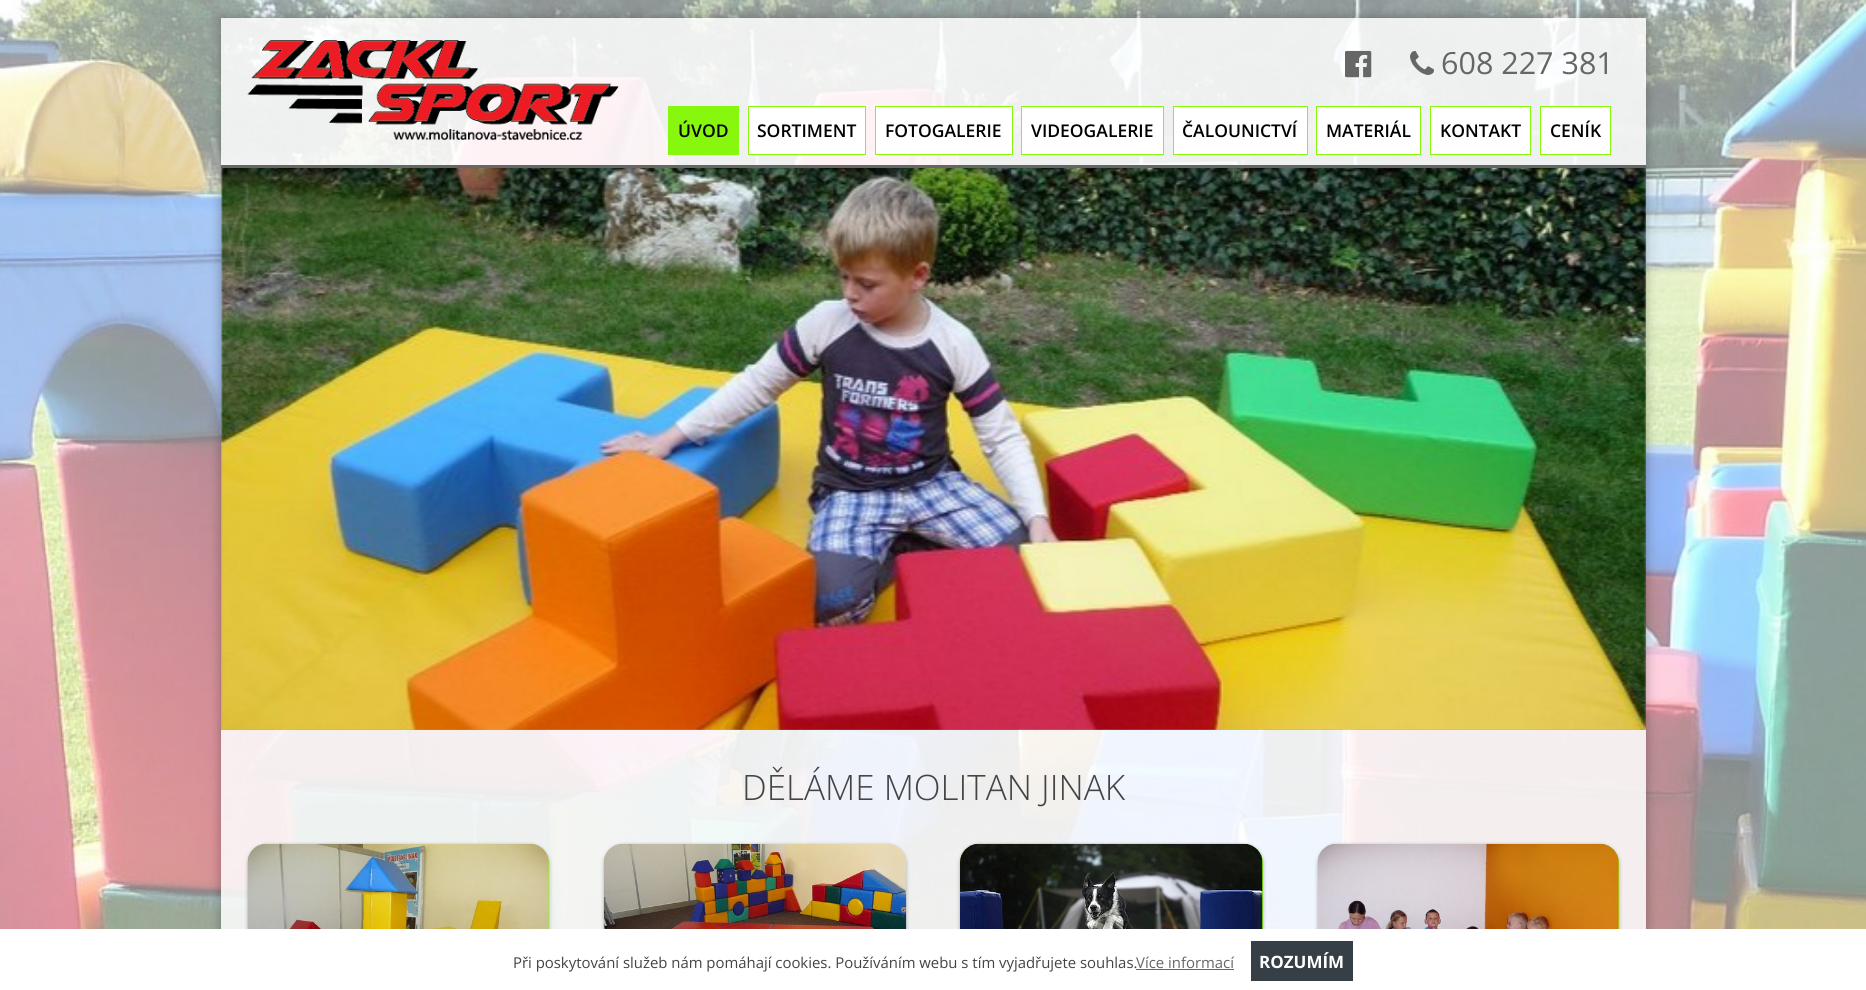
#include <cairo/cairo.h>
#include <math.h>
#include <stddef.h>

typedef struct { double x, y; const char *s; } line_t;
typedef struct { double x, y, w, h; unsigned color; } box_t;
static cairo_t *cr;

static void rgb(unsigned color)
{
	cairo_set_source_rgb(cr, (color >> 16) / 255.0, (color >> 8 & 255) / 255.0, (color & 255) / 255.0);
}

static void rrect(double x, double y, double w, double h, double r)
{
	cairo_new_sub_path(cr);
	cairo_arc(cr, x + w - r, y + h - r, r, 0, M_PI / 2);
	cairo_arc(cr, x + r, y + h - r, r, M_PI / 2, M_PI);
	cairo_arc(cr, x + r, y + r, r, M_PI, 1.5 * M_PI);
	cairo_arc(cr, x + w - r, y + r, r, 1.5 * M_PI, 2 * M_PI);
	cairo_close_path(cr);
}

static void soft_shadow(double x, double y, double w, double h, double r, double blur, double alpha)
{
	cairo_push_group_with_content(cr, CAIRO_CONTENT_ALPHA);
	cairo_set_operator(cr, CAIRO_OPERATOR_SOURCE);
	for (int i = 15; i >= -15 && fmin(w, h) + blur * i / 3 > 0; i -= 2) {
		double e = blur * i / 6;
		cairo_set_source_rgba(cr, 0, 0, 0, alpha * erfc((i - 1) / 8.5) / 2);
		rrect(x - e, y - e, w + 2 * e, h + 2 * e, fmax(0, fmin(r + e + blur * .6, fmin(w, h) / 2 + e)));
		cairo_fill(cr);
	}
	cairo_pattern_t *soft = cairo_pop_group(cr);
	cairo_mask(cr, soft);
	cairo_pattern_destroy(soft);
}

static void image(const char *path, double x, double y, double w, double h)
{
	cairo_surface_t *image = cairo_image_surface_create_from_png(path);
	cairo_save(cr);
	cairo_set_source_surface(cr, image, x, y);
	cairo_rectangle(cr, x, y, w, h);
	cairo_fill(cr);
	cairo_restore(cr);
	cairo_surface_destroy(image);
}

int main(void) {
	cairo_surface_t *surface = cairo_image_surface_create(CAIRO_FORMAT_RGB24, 1866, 990);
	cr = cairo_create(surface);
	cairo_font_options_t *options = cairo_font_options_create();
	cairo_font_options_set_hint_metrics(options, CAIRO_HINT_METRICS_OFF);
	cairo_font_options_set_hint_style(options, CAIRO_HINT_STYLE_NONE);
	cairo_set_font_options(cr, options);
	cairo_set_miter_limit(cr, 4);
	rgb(0xffffff);
	cairo_paint(cr);
	image("img/1.png", 0, 0, 1866, 929);
	cairo_save(cr);
	cairo_set_fill_rule(cr, CAIRO_FILL_RULE_EVEN_ODD);
	cairo_new_path(cr);
	cairo_move_to(cr, 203, 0);
	cairo_line_to(cr, 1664, 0);
	cairo_line_to(cr, 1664, 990);
	cairo_line_to(cr, 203, 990);
	cairo_close_path(cr);
	cairo_move_to(cr, 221, 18);
	cairo_line_to(cr, 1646, 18);
	cairo_line_to(cr, 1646, 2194);
	cairo_line_to(cr, 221, 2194);
	cairo_close_path(cr);
	cairo_clip(cr);
	rgb(0x000000);
	soft_shadow(221, 18, 1425, 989, 0, 5.5, 0.3);
	cairo_restore(cr);
	cairo_set_source_rgba(cr, 1, 1, 1, 0.85);
	cairo_rectangle(cr, 221, 18, 1425, 147);
	cairo_fill(cr);
	rgb(0x666666);
	cairo_rectangle(cr, 221, 165, 1425, 3);
	cairo_fill(cr);
	image("img/2.png", 247, 40, 372, 100);
	image("img/3.png", 1345, 50, 27, 28);
	image("img/4.png", 1410, 51, 24, 24);
	rgb(0x88f70e);
	cairo_rectangle(cr, 668, 106, 71, 49);
	cairo_fill(cr);
	rgb(0xffffff);
	cairo_rectangle(cr, 748.5, 106.5, 117, 48);
	cairo_fill_preserve(cr);
	rgb(0x88f70e);
	cairo_set_line_width(cr, 1);
	cairo_stroke(cr);
	rgb(0xffffff);
	cairo_rectangle(cr, 875.5, 106.5, 137, 48);
	cairo_fill_preserve(cr);
	rgb(0x88f70e);
	cairo_stroke(cr);
	rgb(0xffffff);
	cairo_rectangle(cr, 1021.5, 106.5, 142, 48);
	cairo_fill_preserve(cr);
	rgb(0x88f70e);
	cairo_stroke(cr);
	rgb(0xffffff);
	cairo_rectangle(cr, 1173.5, 106.5, 134, 48);
	cairo_fill_preserve(cr);
	rgb(0x88f70e);
	cairo_stroke(cr);
	rgb(0xffffff);
	cairo_rectangle(cr, 1316.5, 106.5, 104, 48);
	cairo_fill_preserve(cr);
	rgb(0x88f70e);
	cairo_stroke(cr);
	rgb(0xffffff);
	cairo_rectangle(cr, 1430.5, 106.5, 100, 48);
	cairo_fill_preserve(cr);
	rgb(0x88f70e);
	cairo_stroke(cr);
	rgb(0xffffff);
	cairo_rectangle(cr, 1540.5, 106.5, 70, 48);
	cairo_fill_preserve(cr);
	rgb(0x88f70e);
	cairo_stroke(cr);
	image("img/5.png", 221, 168, 1425, 562);
	cairo_set_source_rgba(cr, 1, 1, 1, 0.85);
	cairo_rectangle(cr, 221, 730, 1425, 199);
	cairo_fill(cr);
	rgb(0x000000);
	soft_shadow(248, 845, 301, 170, 19, 2, 0.3);
	rgb(0x88f70e);
	rrect(248, 844, 301, 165, 19);
	cairo_fill(cr);
	image("img/6.png", 247, 843, 302, 86);
	rgb(0x000000);
	soft_shadow(604, 845, 302, 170, 19, 2, 0.3);
	image("img/7.png", 603, 843, 304, 86);
	soft_shadow(960, 845, 303, 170, 19, 2, 0.3);
	rgb(0x88f70e);
	rrect(960, 844, 303, 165, 19);
	cairo_fill(cr);
	image("img/8.png", 960, 843, 303, 86);
	rgb(0x000000);
	soft_shadow(1318, 845, 301, 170, 19, 2, 0.3);
	rgb(0x88f70e);
	rrect(1318, 844, 301, 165, 19);
	cairo_fill(cr);
	image("img/9.png", 1317, 843, 302, 86);
	{
		static const box_t items[] = {
			{211, 929, 1445, 61, 0xffffff},
			{1136, 969, 98, 1, 0x666666},
			{1251, 941, 102, 40, 0x363f45},
		};
		for (size_t i = 0; i < sizeof items / sizeof *items; i++) {
			rgb(items[i].color);
			cairo_rectangle(cr, items[i].x, items[i].y, items[i].w, items[i].h);
			cairo_fill(cr);
		}
	}
	cairo_select_font_face(cr, "Open Sans", CAIRO_FONT_SLANT_NORMAL, CAIRO_FONT_WEIGHT_NORMAL);
	cairo_set_font_size(cr, 30.5);
	rgb(0x666666);
	cairo_move_to(cr, 1441, 74);
	cairo_show_text(cr, "608 227 381");
	cairo_select_font_face(cr, "Open Sans SemiBold", CAIRO_FONT_SLANT_NORMAL, CAIRO_FONT_WEIGHT_NORMAL);
	cairo_set_font_size(cr, 17.5);
	rgb(0x000000);
	{
		static const line_t items[] = {
			{678, 137, "ÚVOD"},
			{757, 137, "SORTIMENT"},
			{885, 137, "FOTOGALERIE"},
			{1031, 137, "VIDEOGALERIE"},
			{1182, 137, "ČALOUNICTVÍ"},
			{1326, 137, "MATERIÁL"},
			{1440, 137, "KONTAKT"},
			{1550, 137, "CENÍK"},
		};
		for (size_t i = 0; i < sizeof items / sizeof *items; i++) {
			cairo_move_to(cr, items[i].x, items[i].y);
			cairo_show_text(cr, items[i].s);
		}
	}
	cairo_select_font_face(cr, "Open Sans Light", CAIRO_FONT_SLANT_NORMAL, CAIRO_FONT_WEIGHT_NORMAL);
	cairo_set_font_size(cr, 35);
	rgb(0x444444);
	cairo_move_to(cr, 742, 800);
	cairo_show_text(cr, "DĚLÁME MOLITAN JINAK");
	cairo_select_font_face(cr, "Open Sans", CAIRO_FONT_SLANT_NORMAL, CAIRO_FONT_WEIGHT_NORMAL);
	cairo_set_font_size(cr, 14.9);
	cairo_move_to(cr, 513, 968);
	cairo_show_text(cr, "Při poskytování služeb nám pomáhají cookies. Používáním webu s tím vyjadřujete souhlas.");
	rgb(0x666666);
	cairo_move_to(cr, 1136, 968);
	cairo_show_text(cr, "Více informací");
	cairo_select_font_face(cr, "Open Sans", CAIRO_FONT_SLANT_NORMAL, CAIRO_FONT_WEIGHT_BOLD);
	cairo_set_font_size(cr, 17);
	rgb(0xffffff);
	cairo_move_to(cr, 1259, 968);
	cairo_show_text(cr, "ROZUMÍM");
	cairo_surface_write_to_png(surface, "page.png");
	cairo_font_options_destroy(options);
	cairo_destroy(cr);
	cairo_surface_destroy(surface);
	return 0;
}
